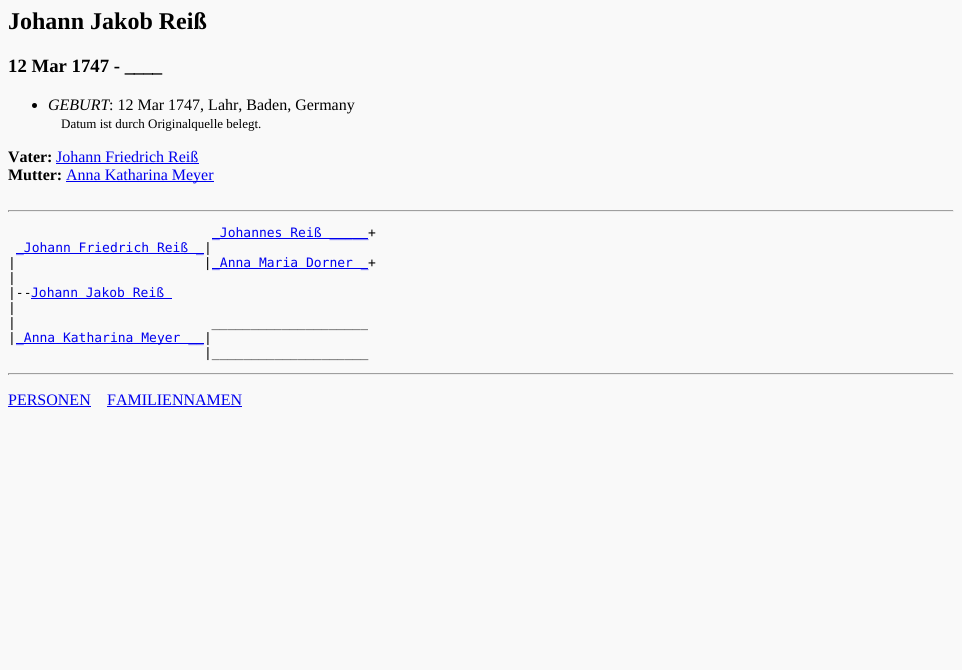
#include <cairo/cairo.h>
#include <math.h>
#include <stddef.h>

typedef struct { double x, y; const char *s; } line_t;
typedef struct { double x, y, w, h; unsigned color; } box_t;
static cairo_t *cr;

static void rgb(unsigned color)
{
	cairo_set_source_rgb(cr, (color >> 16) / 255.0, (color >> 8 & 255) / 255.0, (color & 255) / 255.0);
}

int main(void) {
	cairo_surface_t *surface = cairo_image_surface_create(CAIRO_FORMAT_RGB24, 962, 670);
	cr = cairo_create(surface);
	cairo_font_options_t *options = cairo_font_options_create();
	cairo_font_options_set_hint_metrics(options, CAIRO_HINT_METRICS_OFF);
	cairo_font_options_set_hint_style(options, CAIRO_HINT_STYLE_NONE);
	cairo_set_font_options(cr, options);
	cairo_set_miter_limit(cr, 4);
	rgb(0xf9f9f9);
	cairo_paint(cr);
	rgb(0x000000);
	cairo_arc(cr, 34.5, 105.5, 2.5, 0, 2 * M_PI);
	cairo_fill(cr);
	{
		static const box_t items[] = {
			{56, 163, 143, 1, 0x0000ee},
			{66, 181, 148, 1, 0x0000ee},
			{8, 210, 946, 1, 0x9f9f9f},
			{953, 210, 1, 2, 0xeeeeee},
			{8, 211, 946, 1, 0xeeeeee},
			{8, 210, 1, 2, 0x9f9f9f},
			{212, 238, 156, 1, 0x0000ee},
			{16, 253, 188, 1, 0x0000ee},
			{212, 268, 156, 1, 0x0000ee},
			{31, 298, 141, 1, 0x0000ee},
			{16, 343, 188, 1, 0x0000ee},
			{8, 373, 946, 1, 0x9f9f9f},
			{953, 373, 1, 2, 0xeeeeee},
			{8, 374, 946, 1, 0xeeeeee},
			{8, 373, 1, 2, 0x9f9f9f},
			{8, 406, 83, 1, 0x0000ee},
			{107, 406, 135, 1, 0x0000ee},
		};
		for (size_t i = 0; i < sizeof items / sizeof *items; i++) {
			rgb(items[i].color);
			cairo_rectangle(cr, items[i].x, items[i].y, items[i].w, items[i].h);
			cairo_fill(cr);
		}
	}
	cairo_select_font_face(cr, "Liberation Serif", CAIRO_FONT_SLANT_NORMAL, CAIRO_FONT_WEIGHT_BOLD);
	cairo_set_font_size(cr, 24);
	rgb(0x000000);
	cairo_move_to(cr, 8, 29);
	cairo_show_text(cr, "Johann Jakob Reiß");
	cairo_set_font_size(cr, 18.75);
	cairo_move_to(cr, 8, 72);
	cairo_show_text(cr, "12 Mar 1747 - ____");
	cairo_select_font_face(cr, "Liberation Serif", CAIRO_FONT_SLANT_ITALIC, CAIRO_FONT_WEIGHT_NORMAL);
	cairo_set_font_size(cr, 16);
	cairo_move_to(cr, 48, 110);
	cairo_show_text(cr, "GEBURT");
	cairo_select_font_face(cr, "Liberation Serif", CAIRO_FONT_SLANT_NORMAL, CAIRO_FONT_WEIGHT_NORMAL);
	cairo_move_to(cr, 109, 110);
	cairo_show_text(cr, ": 12 Mar 1747, Lahr, Baden, Germany");
	cairo_set_font_size(cr, 13);
	cairo_move_to(cr, 61, 128);
	cairo_show_text(cr, "Datum ist durch Originalquelle belegt.");
	cairo_select_font_face(cr, "Liberation Serif", CAIRO_FONT_SLANT_NORMAL, CAIRO_FONT_WEIGHT_BOLD);
	cairo_set_font_size(cr, 16);
	cairo_move_to(cr, 8, 162);
	cairo_show_text(cr, "Vater:");
	cairo_select_font_face(cr, "Liberation Serif", CAIRO_FONT_SLANT_NORMAL, CAIRO_FONT_WEIGHT_NORMAL);
	rgb(0x0000ee);
	cairo_move_to(cr, 56, 162);
	cairo_show_text(cr, "Johann Friedrich Reiß");
	cairo_select_font_face(cr, "Liberation Serif", CAIRO_FONT_SLANT_NORMAL, CAIRO_FONT_WEIGHT_BOLD);
	rgb(0x000000);
	cairo_move_to(cr, 8, 180);
	cairo_show_text(cr, "Mutter:");
	cairo_select_font_face(cr, "Liberation Serif", CAIRO_FONT_SLANT_NORMAL, CAIRO_FONT_WEIGHT_NORMAL);
	rgb(0x0000ee);
	cairo_move_to(cr, 66, 180);
	cairo_show_text(cr, "Anna Katharina Meyer");
	cairo_select_font_face(cr, "DejaVu Sans Mono", CAIRO_FONT_SLANT_NORMAL, CAIRO_FONT_WEIGHT_NORMAL);
	cairo_set_font_size(cr, 13);
	cairo_move_to(cr, 212, 237);
	cairo_show_text(cr, "_Johannes Reiß _____");
	rgb(0x000000);
	cairo_move_to(cr, 368, 237);
	cairo_show_text(cr, "+");
	rgb(0x0000ee);
	cairo_move_to(cr, 16, 252);
	cairo_show_text(cr, "_Johann Friedrich Reiß _");
	rgb(0x000000);
	cairo_move_to(cr, 204, 252);
	cairo_show_text(cr, "|");
	cairo_move_to(cr, 8, 267);
	cairo_show_text(cr, "|                        |");
	rgb(0x0000ee);
	cairo_move_to(cr, 212, 267);
	cairo_show_text(cr, "_Anna Maria Dorner _");
	rgb(0x000000);
	{
		static const line_t items[] = {
			{368, 267, "+"},
			{8, 282, "|"},
			{8, 297, "|--"},
		};
		for (size_t i = 0; i < sizeof items / sizeof *items; i++) {
			cairo_move_to(cr, items[i].x, items[i].y);
			cairo_show_text(cr, items[i].s);
		}
	}
	rgb(0x0000ee);
	cairo_move_to(cr, 31, 297);
	cairo_show_text(cr, "Johann Jakob Reiß");
	rgb(0x000000);
	{
		static const line_t items[] = {
			{8, 312, "|"},
			{8, 327, "|                         ____________________"},
			{8, 342, "|"},
		};
		for (size_t i = 0; i < sizeof items / sizeof *items; i++) {
			cairo_move_to(cr, items[i].x, items[i].y);
			cairo_show_text(cr, items[i].s);
		}
	}
	rgb(0x0000ee);
	cairo_move_to(cr, 16, 342);
	cairo_show_text(cr, "_Anna Katharina Meyer __");
	rgb(0x000000);
	cairo_move_to(cr, 204, 342);
	cairo_show_text(cr, "|");
	cairo_move_to(cr, 204, 357);
	cairo_show_text(cr, "|____________________");
	cairo_select_font_face(cr, "Liberation Serif", CAIRO_FONT_SLANT_NORMAL, CAIRO_FONT_WEIGHT_NORMAL);
	cairo_set_font_size(cr, 16);
	rgb(0x0000ee);
	cairo_move_to(cr, 8, 405);
	cairo_show_text(cr, "PERSONEN");
	cairo_move_to(cr, 107, 405);
	cairo_show_text(cr, "FAMILIENNAMEN");
	cairo_surface_write_to_png(surface, "page.png");
	cairo_font_options_destroy(options);
	cairo_destroy(cr);
	cairo_surface_destroy(surface);
	return 0;
}
